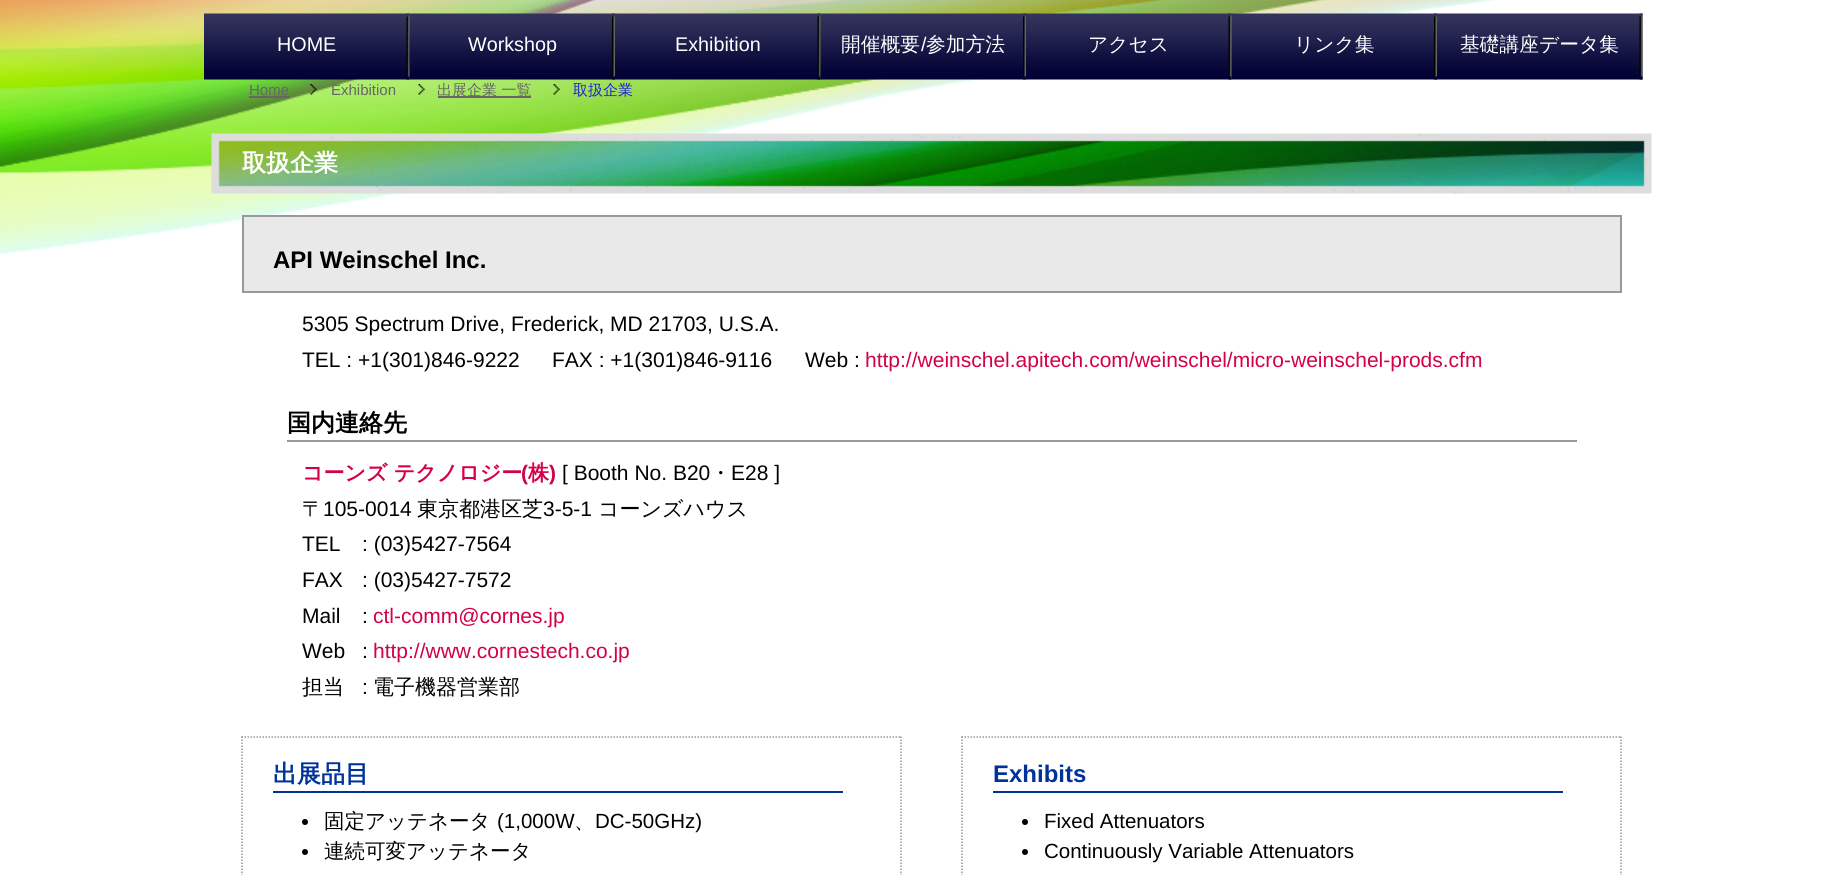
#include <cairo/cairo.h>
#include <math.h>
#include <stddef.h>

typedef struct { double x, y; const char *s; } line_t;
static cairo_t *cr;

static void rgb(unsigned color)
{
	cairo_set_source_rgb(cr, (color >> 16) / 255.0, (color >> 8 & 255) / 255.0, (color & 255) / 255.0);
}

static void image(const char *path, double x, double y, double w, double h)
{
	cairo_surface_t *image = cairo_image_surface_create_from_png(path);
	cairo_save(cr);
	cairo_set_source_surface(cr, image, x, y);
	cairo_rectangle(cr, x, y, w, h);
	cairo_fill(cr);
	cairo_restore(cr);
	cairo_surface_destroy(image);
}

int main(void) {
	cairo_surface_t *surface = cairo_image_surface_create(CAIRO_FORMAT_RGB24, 1848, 875);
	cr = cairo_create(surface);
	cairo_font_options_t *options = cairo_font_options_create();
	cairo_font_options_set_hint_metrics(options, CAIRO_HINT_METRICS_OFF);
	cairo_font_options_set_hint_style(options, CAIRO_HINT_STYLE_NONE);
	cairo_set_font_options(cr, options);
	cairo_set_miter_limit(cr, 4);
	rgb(0xffffff);
	cairo_paint(cr);
	image("img/1.png", 0, 0, 1499, 254);
	image("img/2.png", 204, 13, 206, 67);
	image("img/3.png", 406, 13, 4, 67);
	image("img/4.png", 409, 13, 206, 67);
	image("img/5.png", 612, 13, 3, 67);
	image("img/6.png", 615, 13, 206, 67);
	image("img/7.png", 817, 13, 4, 67);
	image("img/8.png", 820, 13, 206, 67);
	image("img/9.png", 1023, 13, 3, 67);
	image("img/10.png", 1026, 13, 206, 67);
	image("img/11.png", 1228, 13, 4, 67);
	image("img/12.png", 1231, 13, 206, 67);
	image("img/13.png", 1434, 13, 3, 67);
	image("img/14.png", 1437, 13, 206, 67);
	image("img/15.png", 1639, 13, 4, 67);
	rgb(0x666666);
	cairo_rectangle(cr, 249, 96, 41, 2);
	cairo_fill(cr);
	image("img/16.png", 310, 84, 7, 11);
	image("img/17.png", 418, 84, 7, 11);
	cairo_rectangle(cr, 438, 96, 93, 2);
	cairo_fill(cr);
	image("img/18.png", 553, 84, 7, 11);
	image("img/19.png", 211, 133, 1441, 61);
	rgb(0xe9e9e9);
	cairo_rectangle(cr, 243, 216, 1378, 76);
	cairo_fill_preserve(cr);
	rgb(0x999999);
	cairo_stroke(cr);
	cairo_rectangle(cr, 287, 440, 1290, 2);
	cairo_fill(cr);
	cairo_new_path(cr);
	cairo_move_to(cr, 241.5, 737);
	cairo_line_to(cr, 901.5, 737);
	cairo_set_line_width(cr, 1.5);
	cairo_set_dash(cr, (double[]){1.5, 1.5}, 2, 0);
	cairo_stroke(cr);
	cairo_new_path(cr);
	cairo_move_to(cr, 901, 736.5);
	cairo_line_to(cr, 901, 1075.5);
	cairo_stroke(cr);
	cairo_new_path(cr);
	cairo_move_to(cr, 242, 736.5);
	cairo_line_to(cr, 242, 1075.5);
	cairo_stroke(cr);
	rgb(0x003399);
	cairo_rectangle(cr, 273, 791, 570, 2);
	cairo_fill(cr);
	rgb(0x000000);
	cairo_arc(cr, 305, 822, 3, 0, 2 * M_PI);
	cairo_fill(cr);
	cairo_arc(cr, 305, 852, 3, 0, 2 * M_PI);
	cairo_fill(cr);
	cairo_new_path(cr);
	cairo_move_to(cr, 961.5, 737);
	cairo_line_to(cr, 1621.5, 737);
	rgb(0x999999);
	cairo_stroke(cr);
	cairo_new_path(cr);
	cairo_move_to(cr, 1621, 736.5);
	cairo_line_to(cr, 1621, 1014);
	cairo_stroke(cr);
	cairo_new_path(cr);
	cairo_move_to(cr, 962, 736.5);
	cairo_line_to(cr, 962, 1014);
	cairo_stroke(cr);
	rgb(0x003399);
	cairo_rectangle(cr, 993, 791, 570, 2);
	cairo_fill(cr);
	rgb(0x000000);
	cairo_arc(cr, 1025, 822, 3, 0, 2 * M_PI);
	cairo_fill(cr);
	cairo_arc(cr, 1025, 852, 3, 0, 2 * M_PI);
	cairo_fill(cr);
	cairo_select_font_face(cr, "Liberation Sans", CAIRO_FONT_SLANT_NORMAL, CAIRO_FONT_WEIGHT_NORMAL);
	cairo_set_font_size(cr, 19.75);
	rgb(0xffffff);
	{
		static const line_t items[] = {
			{277, 51, "HOME"},
			{468, 51, "Workshop"},
			{675, 51, "Exhibition"},
		};
		for (size_t i = 0; i < sizeof items / sizeof *items; i++) {
			cairo_move_to(cr, items[i].x, items[i].y);
			cairo_show_text(cr, items[i].s);
		}
	}
	cairo_select_font_face(cr, "WenQuanYi Zen Hei Medium", CAIRO_FONT_SLANT_NORMAL, CAIRO_FONT_WEIGHT_NORMAL);
	cairo_move_to(cr, 841, 51);
	cairo_show_text(cr, "開催概要");
	cairo_select_font_face(cr, "Liberation Sans", CAIRO_FONT_SLANT_NORMAL, CAIRO_FONT_WEIGHT_NORMAL);
	cairo_move_to(cr, 921, 51);
	cairo_show_text(cr, "/");
	cairo_select_font_face(cr, "WenQuanYi Zen Hei Medium", CAIRO_FONT_SLANT_NORMAL, CAIRO_FONT_WEIGHT_NORMAL);
	{
		static const line_t items[] = {
			{926, 51, "参加方法"},
			{1088, 51, "アクセス"},
			{1294, 51, "リンク集"},
			{1460, 51, "基礎講座データ集"},
		};
		for (size_t i = 0; i < sizeof items / sizeof *items; i++) {
			cairo_move_to(cr, items[i].x, items[i].y);
			cairo_show_text(cr, items[i].s);
		}
	}
	cairo_select_font_face(cr, "Liberation Sans", CAIRO_FONT_SLANT_NORMAL, CAIRO_FONT_WEIGHT_NORMAL);
	cairo_set_font_size(cr, 15);
	rgb(0x666666);
	cairo_move_to(cr, 249, 95);
	cairo_show_text(cr, "Home");
	cairo_move_to(cr, 331, 95);
	cairo_show_text(cr, "Exhibition");
	cairo_select_font_face(cr, "WenQuanYi Zen Hei Medium", CAIRO_FONT_SLANT_NORMAL, CAIRO_FONT_WEIGHT_NORMAL);
	cairo_move_to(cr, 437, 95);
	cairo_show_text(cr, "出展企業 一覧");
	rgb(0x2222d2);
	cairo_move_to(cr, 573, 95);
	cairo_show_text(cr, "取扱企業");
	cairo_select_font_face(cr, "WenQuanYi Zen Hei", CAIRO_FONT_SLANT_NORMAL, CAIRO_FONT_WEIGHT_BOLD);
	cairo_set_font_size(cr, 24);
	rgb(0xffffff);
	cairo_move_to(cr, 242, 171);
	cairo_show_text(cr, "取扱企業");
	cairo_select_font_face(cr, "Liberation Sans", CAIRO_FONT_SLANT_NORMAL, CAIRO_FONT_WEIGHT_BOLD);
	rgb(0x000000);
	cairo_move_to(cr, 273, 268);
	cairo_show_text(cr, "API Weinschel Inc.");
	cairo_select_font_face(cr, "Liberation Sans", CAIRO_FONT_SLANT_NORMAL, CAIRO_FONT_WEIGHT_NORMAL);
	cairo_set_font_size(cr, 21);
	{
		static const line_t items[] = {
			{302, 331, "5305 Spectrum Drive, Frederick, MD 21703, U.S.A."},
			{302, 367, "TEL : +1(301)846-9222"},
			{552, 367, "FAX : +1(301)846-9116"},
			{805, 367, "Web :"},
		};
		for (size_t i = 0; i < sizeof items / sizeof *items; i++) {
			cairo_move_to(cr, items[i].x, items[i].y);
			cairo_show_text(cr, items[i].s);
		}
	}
	rgb(0xd3004a);
	cairo_move_to(cr, 865, 367);
	cairo_show_text(cr, "http://weinschel.apitech.com/weinschel/micro-weinschel-prods.cfm");
	cairo_select_font_face(cr, "WenQuanYi Zen Hei", CAIRO_FONT_SLANT_NORMAL, CAIRO_FONT_WEIGHT_BOLD);
	cairo_set_font_size(cr, 24);
	rgb(0x000000);
	cairo_move_to(cr, 287, 431);
	cairo_show_text(cr, "国内連絡先");
	cairo_set_font_size(cr, 21);
	rgb(0xd3004a);
	cairo_move_to(cr, 302, 480);
	cairo_show_text(cr, "コーンズ テクノロジー");
	cairo_select_font_face(cr, "Liberation Sans", CAIRO_FONT_SLANT_NORMAL, CAIRO_FONT_WEIGHT_BOLD);
	cairo_move_to(cr, 521, 480);
	cairo_show_text(cr, "(");
	cairo_select_font_face(cr, "WenQuanYi Zen Hei", CAIRO_FONT_SLANT_NORMAL, CAIRO_FONT_WEIGHT_BOLD);
	cairo_move_to(cr, 528, 480);
	cairo_show_text(cr, "株");
	cairo_select_font_face(cr, "Liberation Sans", CAIRO_FONT_SLANT_NORMAL, CAIRO_FONT_WEIGHT_BOLD);
	cairo_move_to(cr, 549, 480);
	cairo_show_text(cr, ")");
	cairo_select_font_face(cr, "Liberation Sans", CAIRO_FONT_SLANT_NORMAL, CAIRO_FONT_WEIGHT_NORMAL);
	rgb(0x000000);
	cairo_move_to(cr, 562, 480);
	cairo_show_text(cr, "[ Booth No. B20");
	cairo_select_font_face(cr, "WenQuanYi Zen Hei Medium", CAIRO_FONT_SLANT_NORMAL, CAIRO_FONT_WEIGHT_NORMAL);
	cairo_move_to(cr, 710, 480);
	cairo_show_text(cr, "・");
	cairo_select_font_face(cr, "Liberation Sans", CAIRO_FONT_SLANT_NORMAL, CAIRO_FONT_WEIGHT_NORMAL);
	cairo_move_to(cr, 731, 480);
	cairo_show_text(cr, "E28 ]");
	cairo_select_font_face(cr, "WenQuanYi Zen Hei Medium", CAIRO_FONT_SLANT_NORMAL, CAIRO_FONT_WEIGHT_NORMAL);
	cairo_move_to(cr, 302, 516);
	cairo_show_text(cr, "〒");
	cairo_select_font_face(cr, "Liberation Sans", CAIRO_FONT_SLANT_NORMAL, CAIRO_FONT_WEIGHT_NORMAL);
	cairo_move_to(cr, 323, 516);
	cairo_show_text(cr, "105-0014");
	cairo_select_font_face(cr, "WenQuanYi Zen Hei Medium", CAIRO_FONT_SLANT_NORMAL, CAIRO_FONT_WEIGHT_NORMAL);
	cairo_move_to(cr, 417, 516);
	cairo_show_text(cr, "東京都港区芝");
	cairo_select_font_face(cr, "Liberation Sans", CAIRO_FONT_SLANT_NORMAL, CAIRO_FONT_WEIGHT_NORMAL);
	cairo_move_to(cr, 543, 516);
	cairo_show_text(cr, "3-5-1");
	cairo_select_font_face(cr, "WenQuanYi Zen Hei Medium", CAIRO_FONT_SLANT_NORMAL, CAIRO_FONT_WEIGHT_NORMAL);
	cairo_move_to(cr, 598, 516);
	cairo_show_text(cr, "コーンズハウス");
	cairo_select_font_face(cr, "Liberation Sans", CAIRO_FONT_SLANT_NORMAL, CAIRO_FONT_WEIGHT_NORMAL);
	{
		static const line_t items[] = {
			{302, 551, "TEL"},
			{362, 551, ": (03)5427-7564"},
			{302, 587, "FAX"},
			{362, 587, ": (03)5427-7572"},
			{302, 623, "Mail"},
			{362, 623, ":"},
		};
		for (size_t i = 0; i < sizeof items / sizeof *items; i++) {
			cairo_move_to(cr, items[i].x, items[i].y);
			cairo_show_text(cr, items[i].s);
		}
	}
	rgb(0xd3004a);
	cairo_move_to(cr, 373, 623);
	cairo_show_text(cr, "ctl-comm@cornes.jp");
	rgb(0x000000);
	cairo_move_to(cr, 302, 658);
	cairo_show_text(cr, "Web");
	cairo_move_to(cr, 362, 658);
	cairo_show_text(cr, ":");
	rgb(0xd3004a);
	cairo_move_to(cr, 373, 658);
	cairo_show_text(cr, "http://www.cornestech.co.jp");
	cairo_select_font_face(cr, "WenQuanYi Zen Hei Medium", CAIRO_FONT_SLANT_NORMAL, CAIRO_FONT_WEIGHT_NORMAL);
	rgb(0x000000);
	cairo_move_to(cr, 302, 694);
	cairo_show_text(cr, "担当");
	cairo_select_font_face(cr, "Liberation Sans", CAIRO_FONT_SLANT_NORMAL, CAIRO_FONT_WEIGHT_NORMAL);
	cairo_move_to(cr, 362, 694);
	cairo_show_text(cr, ":");
	cairo_select_font_face(cr, "WenQuanYi Zen Hei Medium", CAIRO_FONT_SLANT_NORMAL, CAIRO_FONT_WEIGHT_NORMAL);
	cairo_move_to(cr, 373, 694);
	cairo_show_text(cr, "電子機器営業部");
	cairo_select_font_face(cr, "WenQuanYi Zen Hei", CAIRO_FONT_SLANT_NORMAL, CAIRO_FONT_WEIGHT_BOLD);
	cairo_set_font_size(cr, 24);
	rgb(0x003399);
	cairo_move_to(cr, 273, 782);
	cairo_show_text(cr, "出展品目");
	cairo_select_font_face(cr, "WenQuanYi Zen Hei Medium", CAIRO_FONT_SLANT_NORMAL, CAIRO_FONT_WEIGHT_NORMAL);
	cairo_set_font_size(cr, 20.5);
	rgb(0x000000);
	cairo_move_to(cr, 324, 828);
	cairo_show_text(cr, "固定アッテネータ");
	cairo_select_font_face(cr, "Liberation Sans", CAIRO_FONT_SLANT_NORMAL, CAIRO_FONT_WEIGHT_NORMAL);
	cairo_move_to(cr, 497, 828);
	cairo_show_text(cr, "(1,000W");
	cairo_move_to(cr, 595, 828);
	cairo_show_text(cr, "DC-50GHz)");
	cairo_select_font_face(cr, "WenQuanYi Zen Hei Medium", CAIRO_FONT_SLANT_NORMAL, CAIRO_FONT_WEIGHT_NORMAL);
	cairo_move_to(cr, 574, 828);
	cairo_show_text(cr, "、");
	cairo_move_to(cr, 324, 858);
	cairo_show_text(cr, "連続可変アッテネータ");
	cairo_select_font_face(cr, "Liberation Sans", CAIRO_FONT_SLANT_NORMAL, CAIRO_FONT_WEIGHT_BOLD);
	cairo_set_font_size(cr, 24);
	rgb(0x003399);
	cairo_move_to(cr, 993, 782);
	cairo_show_text(cr, "Exhibits");
	cairo_select_font_face(cr, "Liberation Sans", CAIRO_FONT_SLANT_NORMAL, CAIRO_FONT_WEIGHT_NORMAL);
	cairo_set_font_size(cr, 20.5);
	rgb(0x000000);
	cairo_move_to(cr, 1044, 828);
	cairo_show_text(cr, "Fixed Attenuators");
	cairo_move_to(cr, 1044, 858);
	cairo_show_text(cr, "Continuously Variable Attenuators");
	cairo_surface_write_to_png(surface, "page.png");
	cairo_font_options_destroy(options);
	cairo_destroy(cr);
	cairo_surface_destroy(surface);
	return 0;
}
